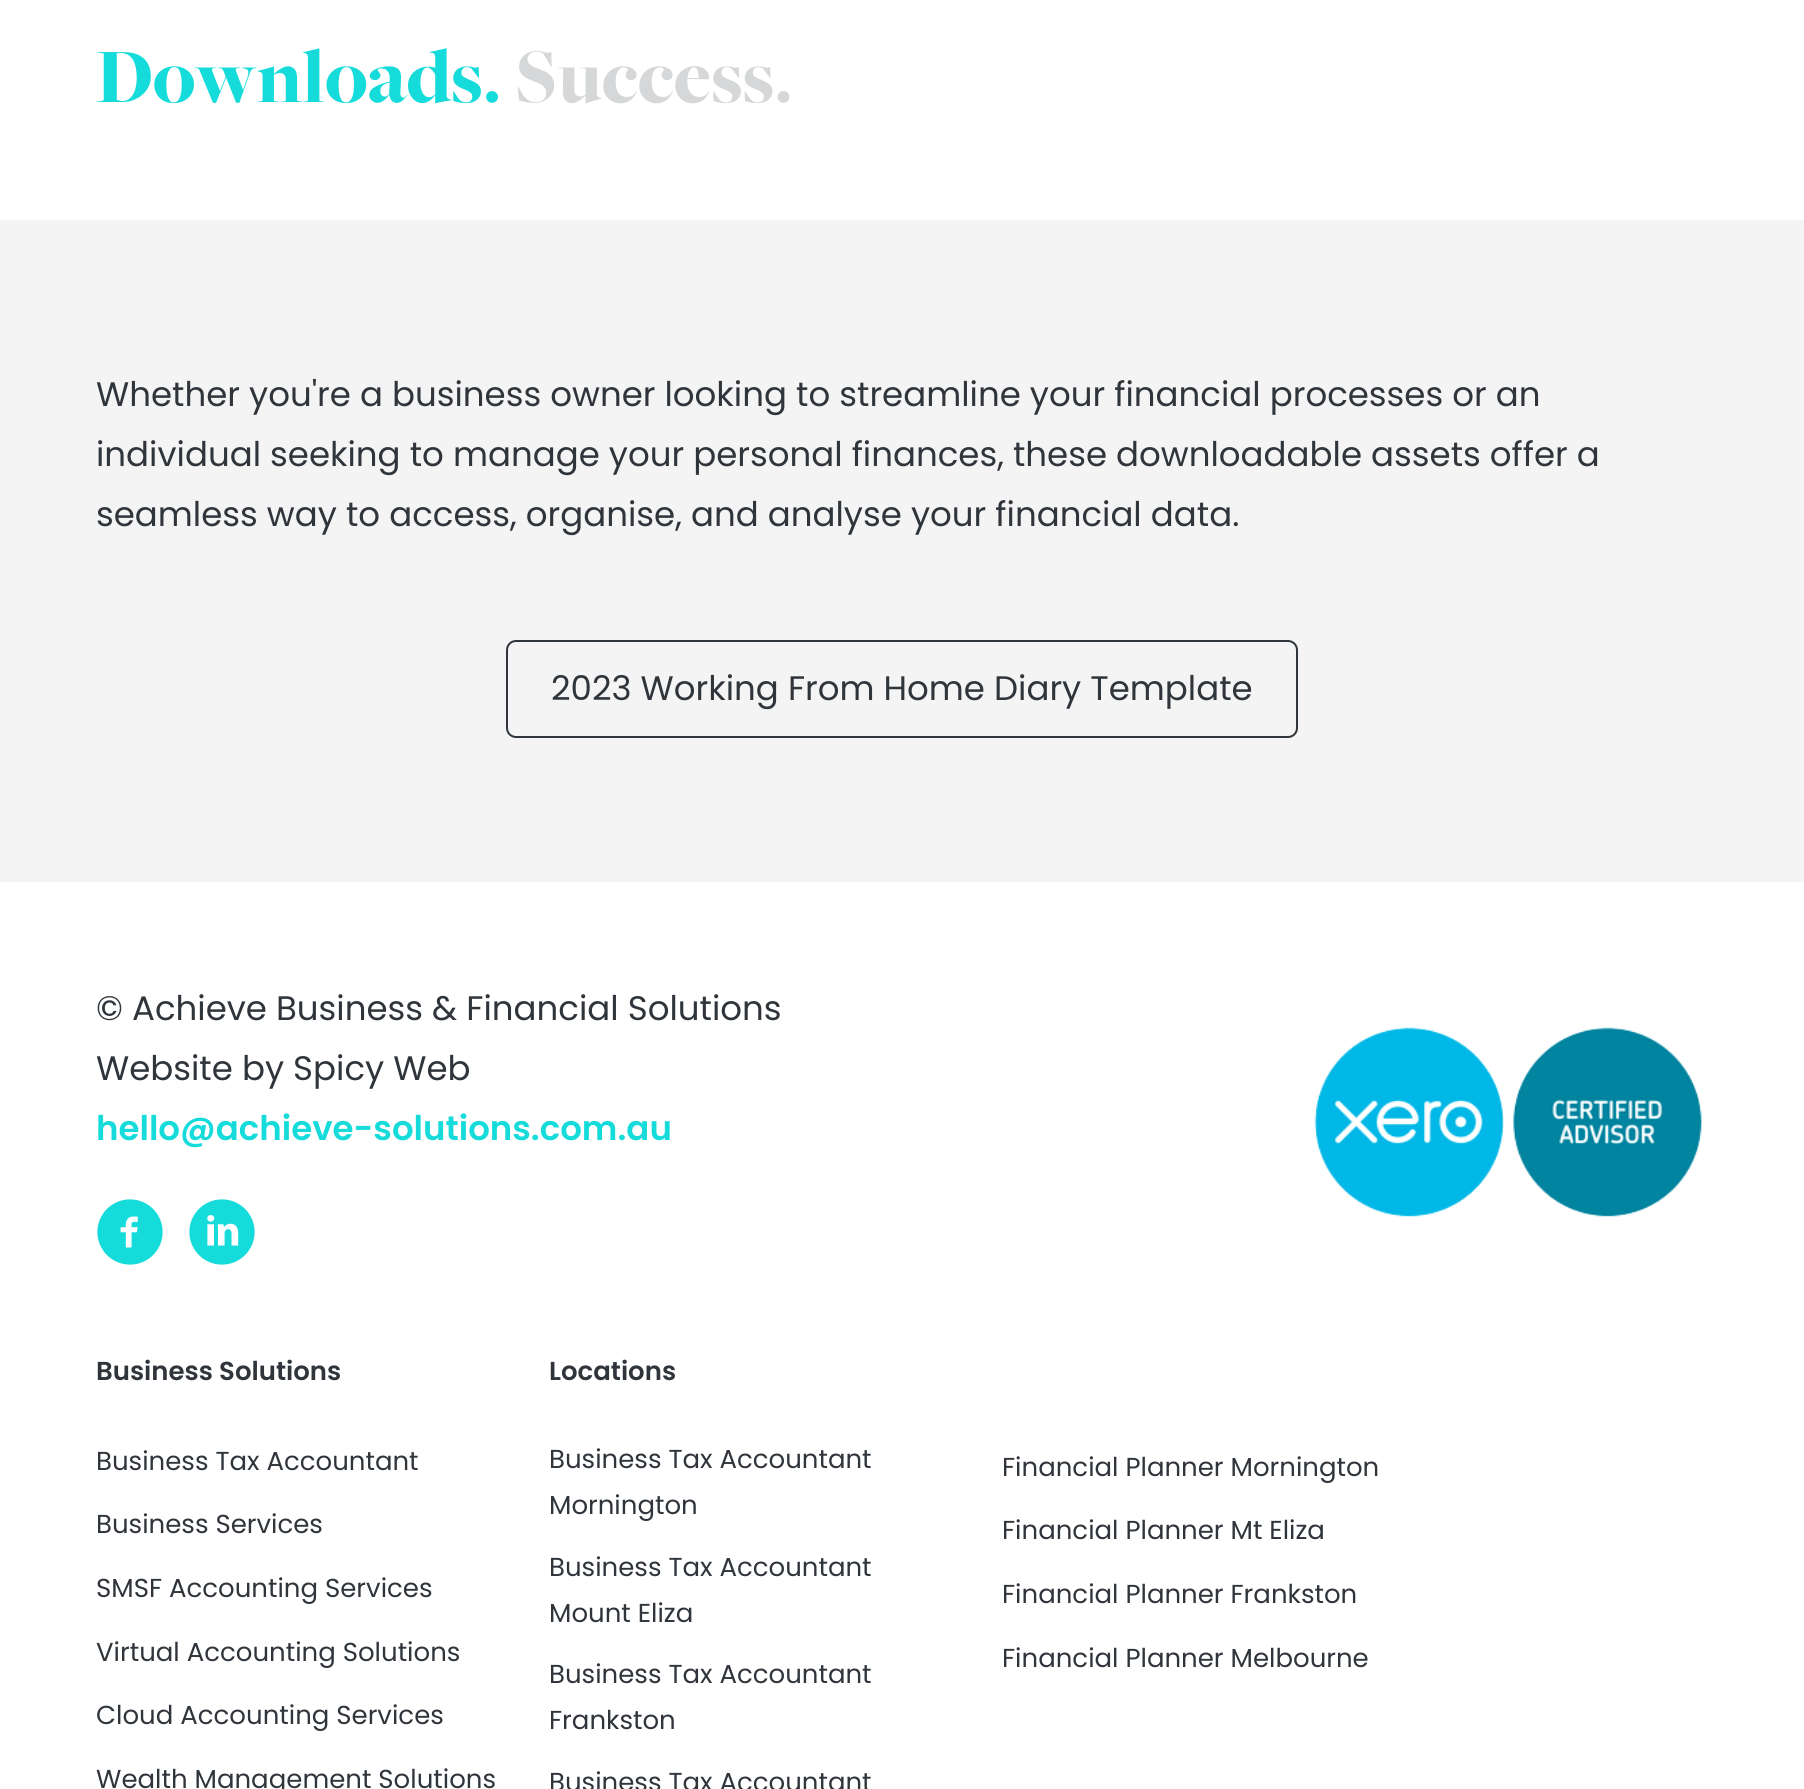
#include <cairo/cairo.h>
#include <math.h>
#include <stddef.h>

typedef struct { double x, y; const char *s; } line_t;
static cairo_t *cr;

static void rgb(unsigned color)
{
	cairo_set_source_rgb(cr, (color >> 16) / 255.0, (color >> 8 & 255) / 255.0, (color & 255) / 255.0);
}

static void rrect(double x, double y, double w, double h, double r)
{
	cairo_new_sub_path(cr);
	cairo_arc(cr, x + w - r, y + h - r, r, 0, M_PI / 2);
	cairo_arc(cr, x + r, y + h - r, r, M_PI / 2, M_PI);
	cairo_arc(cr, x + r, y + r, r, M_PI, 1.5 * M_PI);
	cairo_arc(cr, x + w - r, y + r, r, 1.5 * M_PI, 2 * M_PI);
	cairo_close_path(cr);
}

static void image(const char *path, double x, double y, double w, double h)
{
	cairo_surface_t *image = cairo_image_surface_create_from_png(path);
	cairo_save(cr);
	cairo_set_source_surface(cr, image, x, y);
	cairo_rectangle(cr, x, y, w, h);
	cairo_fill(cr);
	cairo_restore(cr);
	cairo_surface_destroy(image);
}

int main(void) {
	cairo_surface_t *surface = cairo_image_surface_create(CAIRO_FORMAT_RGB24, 1804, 1789);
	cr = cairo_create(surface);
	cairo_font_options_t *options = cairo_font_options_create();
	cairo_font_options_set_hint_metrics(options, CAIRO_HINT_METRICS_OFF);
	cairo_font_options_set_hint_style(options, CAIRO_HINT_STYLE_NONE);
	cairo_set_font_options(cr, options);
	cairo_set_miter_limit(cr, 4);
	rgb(0xffffff);
	cairo_paint(cr);
	rgb(0xf4f4f4);
	cairo_rectangle(cr, 0, 220, 1804, 662);
	cairo_fill(cr);
	rrect(507, 641, 790, 96, 9);
	rgb(0x30353b);
	cairo_stroke(cr);
	image("img/1.png", 97, 1199, 66, 66);
	image("img/2.png", 189, 1199, 66, 66);
	image("img/3.png", 1314, 1027, 389, 190);
	cairo_select_font_face(cr, "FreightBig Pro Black", CAIRO_FONT_SLANT_NORMAL, CAIRO_FONT_WEIGHT_NORMAL);
	cairo_set_font_size(cr, 80);
	rgb(0x16dbdb);
	cairo_move_to(cr, 96, 102);
	cairo_show_text(cr, "Downloads.");
	rgb(0xd6d7d8);
	cairo_move_to(cr, 515, 102);
	cairo_show_text(cr, "Success.");
	cairo_select_font_face(cr, "Poppins", CAIRO_FONT_SLANT_NORMAL, CAIRO_FONT_WEIGHT_NORMAL);
	cairo_set_font_size(cr, 34);
	rgb(0x30353b);
	{
		static const line_t items[] = {
			{96, 406, "Whether you're a business owner looking to streamline your financial processes or an"},
			{96, 466, "individual seeking to manage your personal finances, these downloadable assets offer a"},
			{96, 526, "seamless way to access, organise, and analyse your financial data."},
			{551, 700, "2023 Working From Home Diary Template"},
			{96, 1020, "© Achieve Business & Financial Solutions"},
			{96, 1080, "Website by Spicy Web"},
		};
		for (size_t i = 0; i < sizeof items / sizeof *items; i++) {
			cairo_move_to(cr, items[i].x, items[i].y);
			cairo_show_text(cr, items[i].s);
		}
	}
	cairo_select_font_face(cr, "Poppins SemiBold", CAIRO_FONT_SLANT_NORMAL, CAIRO_FONT_WEIGHT_NORMAL);
	rgb(0x16dbdb);
	cairo_move_to(cr, 96, 1140);
	cairo_show_text(cr, "hello@achieve-solutions.com.au");
	cairo_set_font_size(cr, 26);
	rgb(0x30353b);
	cairo_move_to(cr, 96, 1380);
	cairo_show_text(cr, "Business Solutions");
	cairo_select_font_face(cr, "Poppins", CAIRO_FONT_SLANT_NORMAL, CAIRO_FONT_WEIGHT_NORMAL);
	{
		static const line_t items[] = {
			{96, 1470, "Business Tax Accountant"},
			{96, 1533, "Business Services"},
			{96, 1597, "SMSF Accounting Services"},
			{96, 1661, "Virtual Accounting Solutions"},
			{96, 1724, "Cloud Accounting Services"},
			{96, 1788, "Wealth Management Solutions"},
		};
		for (size_t i = 0; i < sizeof items / sizeof *items; i++) {
			cairo_move_to(cr, items[i].x, items[i].y);
			cairo_show_text(cr, items[i].s);
		}
	}
	cairo_select_font_face(cr, "Poppins SemiBold", CAIRO_FONT_SLANT_NORMAL, CAIRO_FONT_WEIGHT_NORMAL);
	cairo_move_to(cr, 549, 1380);
	cairo_show_text(cr, "Locations");
	cairo_select_font_face(cr, "Poppins", CAIRO_FONT_SLANT_NORMAL, CAIRO_FONT_WEIGHT_NORMAL);
	{
		static const line_t items[] = {
			{549, 1468, "Business Tax Accountant"},
			{549, 1514, "Mornington"},
			{549, 1576, "Business Tax Accountant"},
			{549, 1622, "Mount Eliza"},
			{549, 1683, "Business Tax Accountant"},
			{549, 1729, "Frankston"},
			{549, 1791, "Business Tax Accountant"},
			{1002, 1476, "Financial Planner Mornington"},
			{1002, 1539, "Financial Planner Mt Eliza"},
			{1002, 1603, "Financial Planner Frankston"},
			{1002, 1667, "Financial Planner Melbourne"},
		};
		for (size_t i = 0; i < sizeof items / sizeof *items; i++) {
			cairo_move_to(cr, items[i].x, items[i].y);
			cairo_show_text(cr, items[i].s);
		}
	}
	cairo_surface_write_to_png(surface, "page.png");
	cairo_font_options_destroy(options);
	cairo_destroy(cr);
	cairo_surface_destroy(surface);
	return 0;
}
